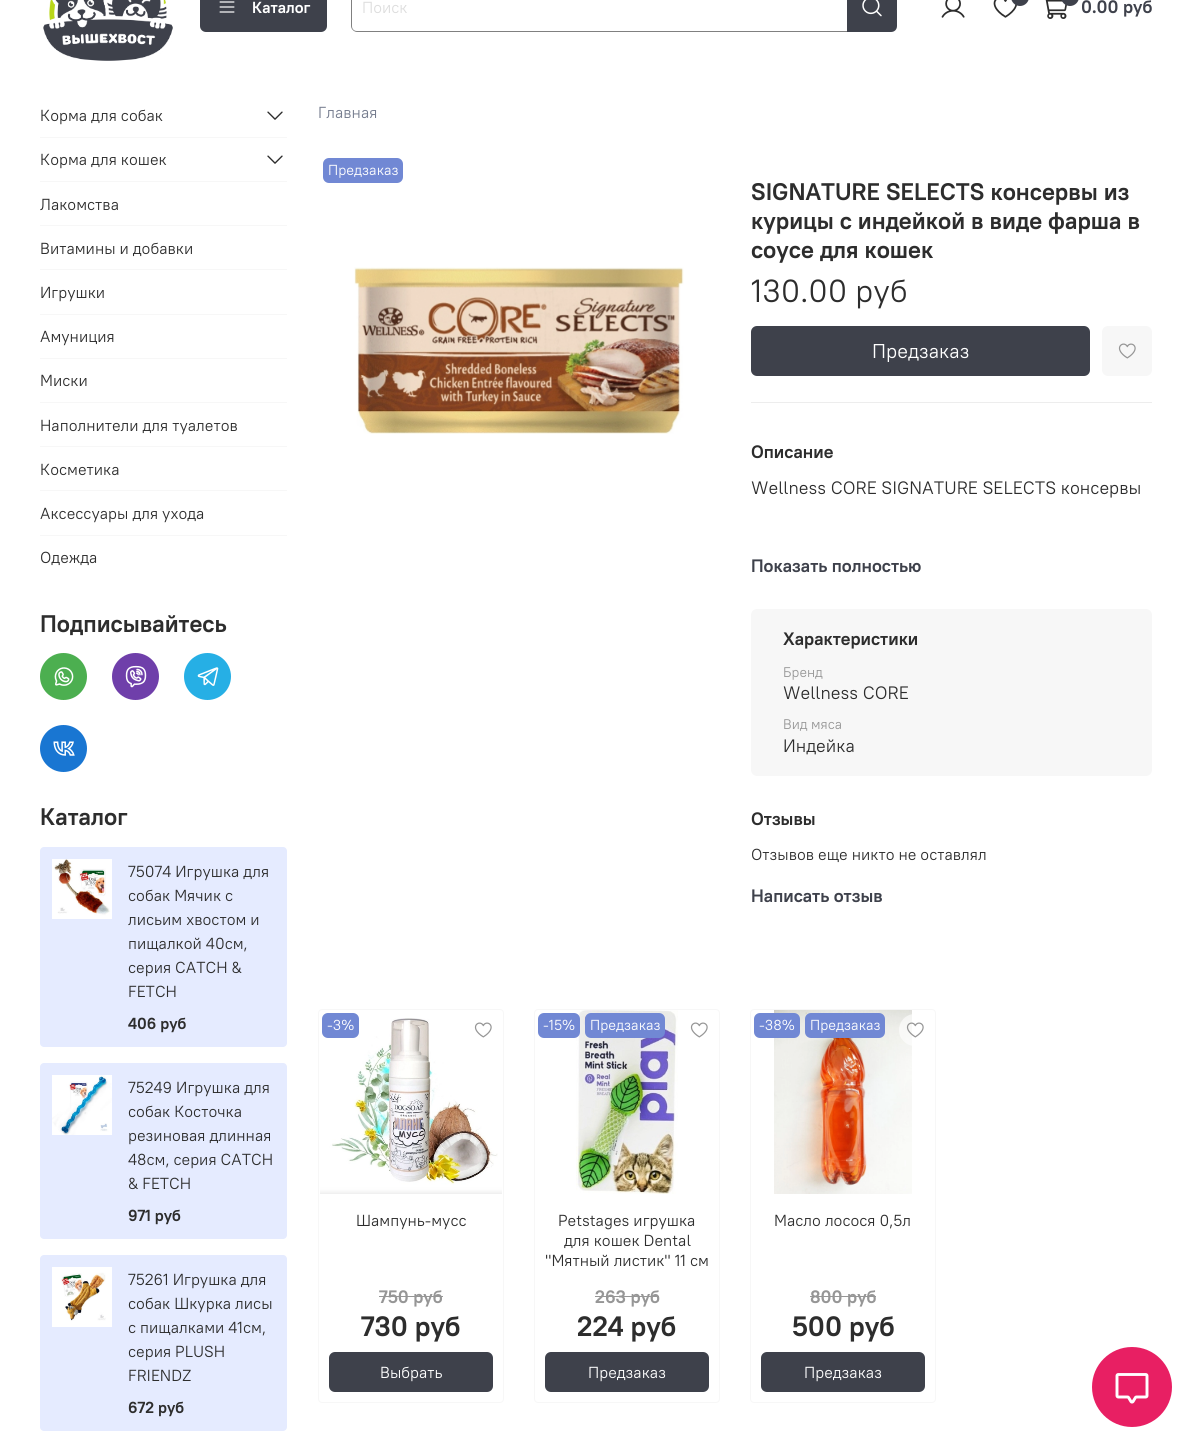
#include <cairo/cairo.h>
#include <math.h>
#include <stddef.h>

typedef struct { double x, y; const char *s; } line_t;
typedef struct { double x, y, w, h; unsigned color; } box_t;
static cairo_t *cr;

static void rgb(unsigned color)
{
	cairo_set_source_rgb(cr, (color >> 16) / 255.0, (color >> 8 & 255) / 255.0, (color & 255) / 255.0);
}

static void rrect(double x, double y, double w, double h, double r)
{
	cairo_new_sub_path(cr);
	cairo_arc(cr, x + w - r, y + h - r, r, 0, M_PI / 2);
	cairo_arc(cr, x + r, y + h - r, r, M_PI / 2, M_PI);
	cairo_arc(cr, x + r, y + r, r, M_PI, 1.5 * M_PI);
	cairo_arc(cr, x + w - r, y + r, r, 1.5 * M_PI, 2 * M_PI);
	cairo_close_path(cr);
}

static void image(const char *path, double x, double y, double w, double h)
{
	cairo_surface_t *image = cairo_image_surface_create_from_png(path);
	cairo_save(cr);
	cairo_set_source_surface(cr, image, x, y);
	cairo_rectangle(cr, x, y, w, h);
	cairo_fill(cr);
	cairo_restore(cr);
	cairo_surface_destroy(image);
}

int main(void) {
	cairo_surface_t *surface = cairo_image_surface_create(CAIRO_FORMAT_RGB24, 1192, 1437);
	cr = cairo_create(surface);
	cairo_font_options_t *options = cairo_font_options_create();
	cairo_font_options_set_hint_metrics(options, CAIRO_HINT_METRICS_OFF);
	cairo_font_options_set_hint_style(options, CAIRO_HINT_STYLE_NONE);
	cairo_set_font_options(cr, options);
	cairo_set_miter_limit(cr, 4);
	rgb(0xffffff);
	cairo_paint(cr);
	image("img/1.png", 43, 0, 130, 61);
	rgb(0x3e414b);
	rrect(200, -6, 127, 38, 6);
	cairo_fill(cr);
	image("img/2.png", 219, 1, 16, 12);
	rgb(0x808080);
	cairo_set_fill_rule(cr, CAIRO_FILL_RULE_EVEN_ODD);
	cairo_new_path(cr);
	cairo_move_to(cr, 357, -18);
	cairo_line_to(cr, 847, -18);
	cairo_line_to(cr, 847, 32);
	cairo_line_to(cr, 357, 32);
	cairo_curve_to(cr, 354, 32, 351, 29, 351, 26);
	cairo_line_to(cr, 351, -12);
	cairo_curve_to(cr, 351, -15, 354, -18, 357, -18);
	cairo_close_path(cr);
	cairo_move_to(cr, 357, -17);
	cairo_line_to(cr, 847, -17);
	cairo_line_to(cr, 847, 31);
	cairo_line_to(cr, 357, 31);
	cairo_curve_to(cr, 354, 31, 352, 29, 352, 26);
	cairo_line_to(cr, 352, -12);
	cairo_curve_to(cr, 352, -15, 354, -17, 357, -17);
	cairo_close_path(cr);
	cairo_fill(cr);
	rgb(0x3e414b);
	cairo_new_path(cr);
	cairo_move_to(cr, 847, -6);
	cairo_line_to(cr, 891, -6);
	cairo_curve_to(cr, 894.5, -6, 897, -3.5, 897, 0);
	cairo_line_to(cr, 897, 26);
	cairo_curve_to(cr, 897, 29.5, 894.5, 32, 891, 32);
	cairo_line_to(cr, 847, 32);
	cairo_close_path(cr);
	cairo_fill(cr);
	image("img/3.png", 862, 0, 20, 17);
	image("img/4.png", 941, 0, 24, 18);
	image("img/5.png", 993, 0, 24, 18);
	rrect(1011, -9, 18, 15, 9);
	cairo_fill(cr);
	image("img/6.png", 1045, 0, 22, 19);
	rrect(1061, -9, 18, 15, 9);
	cairo_fill(cr);
	rgb(0xf7f7f7);
	cairo_rectangle(cr, 40, 137, 247, 1);
	cairo_fill(cr);
	image("img/7.png", 267, 111, 16, 9);
	cairo_rectangle(cr, 40, 181, 247, 1);
	cairo_fill(cr);
	image("img/7.png", 267, 155, 16, 9);
	{
		static const box_t items[] = {
			{40, 225, 247, 1, 0xf7f7f7},
			{40, 269, 247, 1, 0xf7f7f7},
			{40, 314, 247, 1, 0xf7f7f7},
			{40, 358, 247, 1, 0xf7f7f7},
			{40, 402, 247, 1, 0xf7f7f7},
			{40, 446, 247, 1, 0xf7f7f7},
			{40, 490, 247, 1, 0xf7f7f7},
			{40, 535, 247, 1, 0xf7f7f7},
		};
		for (size_t i = 0; i < sizeof items / sizeof *items; i++) {
			rgb(items[i].color);
			cairo_rectangle(cr, items[i].x, items[i].y, items[i].w, items[i].h);
			cairo_fill(cr);
		}
	}
	rgb(0x4caf50);
	cairo_arc(cr, 63.5, 676.5, 23.5, 0, 2 * M_PI);
	cairo_fill(cr);
	image("img/8.png", 54, 667, 20, 19);
	rgb(0x6f3faa);
	cairo_arc(cr, 135.5, 676.5, 23.5, 0, 2 * M_PI);
	cairo_fill(cr);
	image("img/9.png", 125, 665, 22, 23);
	rgb(0x26afe5);
	cairo_arc(cr, 207.5, 676.5, 23.5, 0, 2 * M_PI);
	cairo_fill(cr);
	image("img/10.png", 197, 667, 22, 19);
	rgb(0x1976d2);
	cairo_arc(cr, 63.5, 748.5, 23.5, 0, 2 * M_PI);
	cairo_fill(cr);
	image("img/11.png", 53, 741, 22, 15);
	rgb(0xe5ebff);
	rrect(40, 847, 247, 200, 4);
	cairo_fill(cr);
	image("img/12.png", 52, 859, 60, 60);
	rrect(40, 1063, 247, 176, 4);
	cairo_fill(cr);
	image("img/13.png", 52, 1075, 60, 60);
	rrect(40, 1255, 247, 176, 4);
	cairo_fill(cr);
	image("img/14.png", 52, 1267, 60, 60);
	rgb(0x7188d4);
	rrect(323, 158, 80, 25, 6);
	cairo_fill(cr);
	image("img/15.png", 354, 267, 330, 167);
	rgb(0x3e414b);
	rrect(751, 326, 339, 50, 6);
	cairo_fill(cr);
	rgb(0xf7f7f7);
	rrect(1102, 326, 50, 50, 6);
	cairo_fill(cr);
	image("img/16.png", 1118, 343, 18, 16);
	rgb(0xededed);
	cairo_rectangle(cr, 751, 402, 401, 1);
	cairo_fill(cr);
	rgb(0xf7f7f7);
	rrect(751, 609, 401, 167, 6);
	cairo_fill(cr);
	rrect(318.5, 1009.5, 185, 393, 3.5);
	cairo_set_line_width(cr, 1);
	cairo_stroke(cr);
	image("img/17.png", 320, 1018, 182, 176);
	rgb(0x7188d4);
	rrect(322, 1013, 37, 25, 6);
	cairo_fill(cr);
	image("img/18.png", 474, 1022, 18, 16);
	rgb(0x969696);
	cairo_rectangle(cr, 379, 1296, 64, 1);
	cairo_fill(cr);
	rgb(0x3e414b);
	rrect(329, 1352, 164, 40, 6);
	cairo_fill(cr);
	rrect(534.5, 1009.5, 185, 393, 3.5);
	rgb(0xf7f7f7);
	cairo_stroke(cr);
	image("img/19.png", 576, 1010, 102, 184);
	rgb(0x7188d4);
	rrect(538, 1013, 42, 25, 6);
	cairo_fill(cr);
	rrect(585, 1013, 80, 25, 6);
	cairo_fill(cr);
	image("img/18.png", 690, 1022, 18, 16);
	rgb(0x969696);
	cairo_rectangle(cr, 595, 1296, 64, 1);
	cairo_fill(cr);
	rgb(0x3e414b);
	rrect(545, 1352, 164, 40, 6);
	cairo_fill(cr);
	rrect(750.5, 1009.5, 185, 393, 3.5);
	rgb(0xf7f7f7);
	cairo_stroke(cr);
	image("img/20.png", 774, 1010, 138, 184);
	cairo_set_source_rgba(cr, 1, 1, 1, 0.6);
	cairo_arc(cr, 915, 1030, 16, 0, 2 * M_PI);
	cairo_fill(cr);
	image("img/21.png", 906, 1022, 18, 16);
	rgb(0x7188d4);
	rrect(754, 1013, 46, 25, 6);
	cairo_fill(cr);
	rrect(805, 1013, 80, 25, 6);
	cairo_fill(cr);
	rgb(0x969696);
	cairo_rectangle(cr, 810, 1296, 66, 1);
	cairo_fill(cr);
	rgb(0x3e414b);
	rrect(761, 1352, 164, 40, 6);
	cairo_fill(cr);
	rgb(0xe81f63);
	cairo_arc(cr, 1132, 1387, 40, 0, 2 * M_PI);
	cairo_fill(cr);
	image("img/22.png", 1115, 1373, 34, 31);
	cairo_select_font_face(cr, "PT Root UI", CAIRO_FONT_SLANT_NORMAL, CAIRO_FONT_WEIGHT_BOLD);
	cairo_set_font_size(cr, 16);
	rgb(0xffffff);
	cairo_move_to(cr, 252, 13);
	cairo_show_text(cr, "Каталог");
	cairo_select_font_face(cr, "PT Root UI", CAIRO_FONT_SLANT_NORMAL, CAIRO_FONT_WEIGHT_NORMAL);
	rgb(0xdddddd);
	cairo_move_to(cr, 362, 13);
	cairo_show_text(cr, "Поиск");
	cairo_select_font_face(cr, "PT Root UI", CAIRO_FONT_SLANT_NORMAL, CAIRO_FONT_WEIGHT_BOLD);
	cairo_set_font_size(cr, 18);
	rgb(0x3e414b);
	cairo_move_to(cr, 1081, 13);
	cairo_show_text(cr, "0.00 руб");
	cairo_select_font_face(cr, "PT Root UI", CAIRO_FONT_SLANT_NORMAL, CAIRO_FONT_WEIGHT_NORMAL);
	cairo_set_font_size(cr, 16);
	rgb(0x2d2d2d);
	{
		static const line_t items[] = {
			{40, 121, "Корма для собак"},
			{40, 165, "Корма для кошек"},
			{40, 210, "Лакомства"},
			{40, 254, "Витамины и добавки"},
			{40, 298, "Игрушки"},
			{40, 342, "Амуниция"},
			{40, 386, "Миски"},
			{40, 431, "Наполнители для туалетов"},
			{40, 475, "Косметика"},
			{40, 519, "Аксессуары для ухода"},
			{40, 563, "Одежда"},
		};
		for (size_t i = 0; i < sizeof items / sizeof *items; i++) {
			cairo_move_to(cr, items[i].x, items[i].y);
			cairo_show_text(cr, items[i].s);
		}
	}
	cairo_select_font_face(cr, "PT Root UI", CAIRO_FONT_SLANT_NORMAL, CAIRO_FONT_WEIGHT_BOLD);
	cairo_set_font_size(cr, 24);
	cairo_move_to(cr, 40, 632);
	cairo_show_text(cr, "Подписывайтесь");
	cairo_move_to(cr, 40, 825);
	cairo_show_text(cr, "Каталог");
	cairo_select_font_face(cr, "PT Root UI", CAIRO_FONT_SLANT_NORMAL, CAIRO_FONT_WEIGHT_NORMAL);
	cairo_set_font_size(cr, 16);
	{
		static const line_t items[] = {
			{128, 877, "75074 Игрушка для"},
			{128, 901, "собак Мячик с"},
			{128, 925, "лисьим хвостом и"},
			{128, 949, "пищалкой 40см,"},
			{128, 973, "серия CATCH &"},
			{128, 997, "FETCH"},
		};
		for (size_t i = 0; i < sizeof items / sizeof *items; i++) {
			cairo_move_to(cr, items[i].x, items[i].y);
			cairo_show_text(cr, items[i].s);
		}
	}
	cairo_select_font_face(cr, "PT Root UI", CAIRO_FONT_SLANT_NORMAL, CAIRO_FONT_WEIGHT_BOLD);
	cairo_move_to(cr, 128, 1029);
	cairo_show_text(cr, "406 руб");
	cairo_select_font_face(cr, "PT Root UI", CAIRO_FONT_SLANT_NORMAL, CAIRO_FONT_WEIGHT_NORMAL);
	{
		static const line_t items[] = {
			{128, 1093, "75249 Игрушка для"},
			{128, 1117, "собак Косточка"},
			{128, 1141, "резиновая длинная"},
			{128, 1165, "48см, серия CATCH"},
			{128, 1189, "& FETCH"},
		};
		for (size_t i = 0; i < sizeof items / sizeof *items; i++) {
			cairo_move_to(cr, items[i].x, items[i].y);
			cairo_show_text(cr, items[i].s);
		}
	}
	cairo_select_font_face(cr, "PT Root UI", CAIRO_FONT_SLANT_NORMAL, CAIRO_FONT_WEIGHT_BOLD);
	cairo_move_to(cr, 128, 1221);
	cairo_show_text(cr, "971 руб");
	cairo_select_font_face(cr, "PT Root UI", CAIRO_FONT_SLANT_NORMAL, CAIRO_FONT_WEIGHT_NORMAL);
	{
		static const line_t items[] = {
			{128, 1285, "75261 Игрушка для"},
			{128, 1309, "собак Шкурка лисы"},
			{128, 1333, "с пищалками 41см,"},
			{128, 1357, "серия PLUSH"},
			{128, 1381, "FRIENDZ"},
		};
		for (size_t i = 0; i < sizeof items / sizeof *items; i++) {
			cairo_move_to(cr, items[i].x, items[i].y);
			cairo_show_text(cr, items[i].s);
		}
	}
	cairo_select_font_face(cr, "PT Root UI", CAIRO_FONT_SLANT_NORMAL, CAIRO_FONT_WEIGHT_BOLD);
	cairo_move_to(cr, 128, 1413);
	cairo_show_text(cr, "672 руб");
	cairo_select_font_face(cr, "PT Root UI", CAIRO_FONT_SLANT_NORMAL, CAIRO_FONT_WEIGHT_NORMAL);
	rgb(0x757c8e);
	cairo_move_to(cr, 318, 118);
	cairo_show_text(cr, "Главная");
	cairo_set_font_size(cr, 14.5);
	rgb(0xffffff);
	cairo_move_to(cr, 328, 175);
	cairo_show_text(cr, "Предзаказ");
	cairo_select_font_face(cr, "PT Root UI", CAIRO_FONT_SLANT_NORMAL, CAIRO_FONT_WEIGHT_BOLD);
	cairo_set_font_size(cr, 24);
	rgb(0x2d2d2d);
	{
		static const line_t items[] = {
			{751, 200, "SIGNATURE SELECTS консервы из"},
			{751, 229, "курицы с индейкой в виде фарша в"},
			{751, 258, "соусе для кошек"},
		};
		for (size_t i = 0; i < sizeof items / sizeof *items; i++) {
			cairo_move_to(cr, items[i].x, items[i].y);
			cairo_show_text(cr, items[i].s);
		}
	}
	cairo_select_font_face(cr, "PT Root UI", CAIRO_FONT_SLANT_NORMAL, CAIRO_FONT_WEIGHT_NORMAL);
	cairo_set_font_size(cr, 32);
	cairo_move_to(cr, 751, 302);
	cairo_show_text(cr, "130.00 руб");
	cairo_set_font_size(cr, 20);
	rgb(0xffffff);
	cairo_move_to(cr, 872, 358);
	cairo_show_text(cr, "Предзаказ");
	cairo_select_font_face(cr, "PT Root UI", CAIRO_FONT_SLANT_NORMAL, CAIRO_FONT_WEIGHT_BOLD);
	cairo_set_font_size(cr, 18);
	rgb(0x2d2d2d);
	cairo_move_to(cr, 751, 458);
	cairo_show_text(cr, "Описание");
	cairo_select_font_face(cr, "PT Root UI", CAIRO_FONT_SLANT_NORMAL, CAIRO_FONT_WEIGHT_NORMAL);
	cairo_move_to(cr, 751, 494);
	cairo_show_text(cr, "Wellness CORE SIGNATURE SELECTS консервы");
	cairo_select_font_face(cr, "PT Root UI", CAIRO_FONT_SLANT_NORMAL, CAIRO_FONT_WEIGHT_BOLD);
	rgb(0x3e414b);
	cairo_move_to(cr, 751, 572);
	cairo_show_text(cr, "Показать полностью");
	rgb(0x2d2d2d);
	cairo_move_to(cr, 783, 645);
	cairo_show_text(cr, "Характеристики");
	cairo_select_font_face(cr, "PT Root UI", CAIRO_FONT_SLANT_NORMAL, CAIRO_FONT_WEIGHT_NORMAL);
	cairo_set_font_size(cr, 14);
	rgb(0x969696);
	cairo_move_to(cr, 783, 677);
	cairo_show_text(cr, "Бренд");
	cairo_set_font_size(cr, 18);
	rgb(0x2d2d2d);
	cairo_move_to(cr, 783, 699);
	cairo_show_text(cr, "Wellness CORE");
	cairo_set_font_size(cr, 14);
	rgb(0x969696);
	cairo_move_to(cr, 783, 729);
	cairo_show_text(cr, "Вид мяса");
	cairo_set_font_size(cr, 18);
	rgb(0x2d2d2d);
	cairo_move_to(cr, 783, 752);
	cairo_show_text(cr, "Индейка");
	cairo_select_font_face(cr, "PT Root UI", CAIRO_FONT_SLANT_NORMAL, CAIRO_FONT_WEIGHT_BOLD);
	cairo_move_to(cr, 751, 825);
	cairo_show_text(cr, "Отзывы");
	cairo_select_font_face(cr, "PT Root UI", CAIRO_FONT_SLANT_NORMAL, CAIRO_FONT_WEIGHT_NORMAL);
	cairo_set_font_size(cr, 16);
	cairo_move_to(cr, 751, 860);
	cairo_show_text(cr, "Отзывов еще никто не оставлял");
	cairo_select_font_face(cr, "PT Root UI", CAIRO_FONT_SLANT_NORMAL, CAIRO_FONT_WEIGHT_BOLD);
	cairo_set_font_size(cr, 18);
	rgb(0x3e414b);
	cairo_move_to(cr, 751, 902);
	cairo_show_text(cr, "Написать отзыв");
	cairo_select_font_face(cr, "PT Root UI", CAIRO_FONT_SLANT_NORMAL, CAIRO_FONT_WEIGHT_NORMAL);
	cairo_set_font_size(cr, 14.5);
	rgb(0xffffff);
	cairo_move_to(cr, 327, 1030);
	cairo_show_text(cr, "-3%");
	cairo_set_font_size(cr, 16);
	rgb(0x2d2d2d);
	cairo_move_to(cr, 356, 1226);
	cairo_show_text(cr, "Шампунь-мусс");
	cairo_select_font_face(cr, "PT Root UI", CAIRO_FONT_SLANT_NORMAL, CAIRO_FONT_WEIGHT_BOLD);
	cairo_set_font_size(cr, 18);
	rgb(0x969696);
	cairo_move_to(cr, 379, 1303);
	cairo_show_text(cr, "750 руб");
	cairo_set_font_size(cr, 28);
	rgb(0x2d2d2d);
	cairo_move_to(cr, 361, 1336);
	cairo_show_text(cr, "730 руб");
	cairo_select_font_face(cr, "PT Root UI", CAIRO_FONT_SLANT_NORMAL, CAIRO_FONT_WEIGHT_NORMAL);
	cairo_set_font_size(cr, 16);
	rgb(0xffffff);
	cairo_move_to(cr, 380, 1378);
	cairo_show_text(cr, "Выбрать");
	cairo_set_font_size(cr, 14.5);
	cairo_move_to(cr, 543, 1030);
	cairo_show_text(cr, "-15%");
	cairo_move_to(cr, 590, 1030);
	cairo_show_text(cr, "Предзаказ");
	cairo_set_font_size(cr, 16);
	rgb(0x2d2d2d);
	{
		static const line_t items[] = {
			{558, 1226, "Petstages игрушка"},
			{564, 1246, "для кошек Dental"},
			{545, 1266, "\"Мятный листик\" 11 см"},
		};
		for (size_t i = 0; i < sizeof items / sizeof *items; i++) {
			cairo_move_to(cr, items[i].x, items[i].y);
			cairo_show_text(cr, items[i].s);
		}
	}
	cairo_select_font_face(cr, "PT Root UI", CAIRO_FONT_SLANT_NORMAL, CAIRO_FONT_WEIGHT_BOLD);
	cairo_set_font_size(cr, 18);
	rgb(0x969696);
	cairo_move_to(cr, 595, 1303);
	cairo_show_text(cr, "263 руб");
	cairo_set_font_size(cr, 28);
	rgb(0x2d2d2d);
	cairo_move_to(cr, 577, 1336);
	cairo_show_text(cr, "224 руб");
	cairo_select_font_face(cr, "PT Root UI", CAIRO_FONT_SLANT_NORMAL, CAIRO_FONT_WEIGHT_NORMAL);
	cairo_set_font_size(cr, 16);
	rgb(0xffffff);
	cairo_move_to(cr, 588, 1378);
	cairo_show_text(cr, "Предзаказ");
	cairo_set_font_size(cr, 14.5);
	cairo_move_to(cr, 759, 1030);
	cairo_show_text(cr, "-38%");
	cairo_move_to(cr, 810, 1030);
	cairo_show_text(cr, "Предзаказ");
	cairo_set_font_size(cr, 16);
	rgb(0x2d2d2d);
	cairo_move_to(cr, 774, 1226);
	cairo_show_text(cr, "Масло лосося 0,5л");
	cairo_select_font_face(cr, "PT Root UI", CAIRO_FONT_SLANT_NORMAL, CAIRO_FONT_WEIGHT_BOLD);
	cairo_set_font_size(cr, 18);
	rgb(0x969696);
	cairo_move_to(cr, 810, 1303);
	cairo_show_text(cr, "800 руб");
	cairo_set_font_size(cr, 28);
	rgb(0x2d2d2d);
	cairo_move_to(cr, 792, 1336);
	cairo_show_text(cr, "500 руб");
	cairo_select_font_face(cr, "PT Root UI", CAIRO_FONT_SLANT_NORMAL, CAIRO_FONT_WEIGHT_NORMAL);
	cairo_set_font_size(cr, 16);
	rgb(0xffffff);
	cairo_move_to(cr, 804, 1378);
	cairo_show_text(cr, "Предзаказ");
	cairo_surface_write_to_png(surface, "page.png");
	cairo_font_options_destroy(options);
	cairo_destroy(cr);
	cairo_surface_destroy(surface);
	return 0;
}
